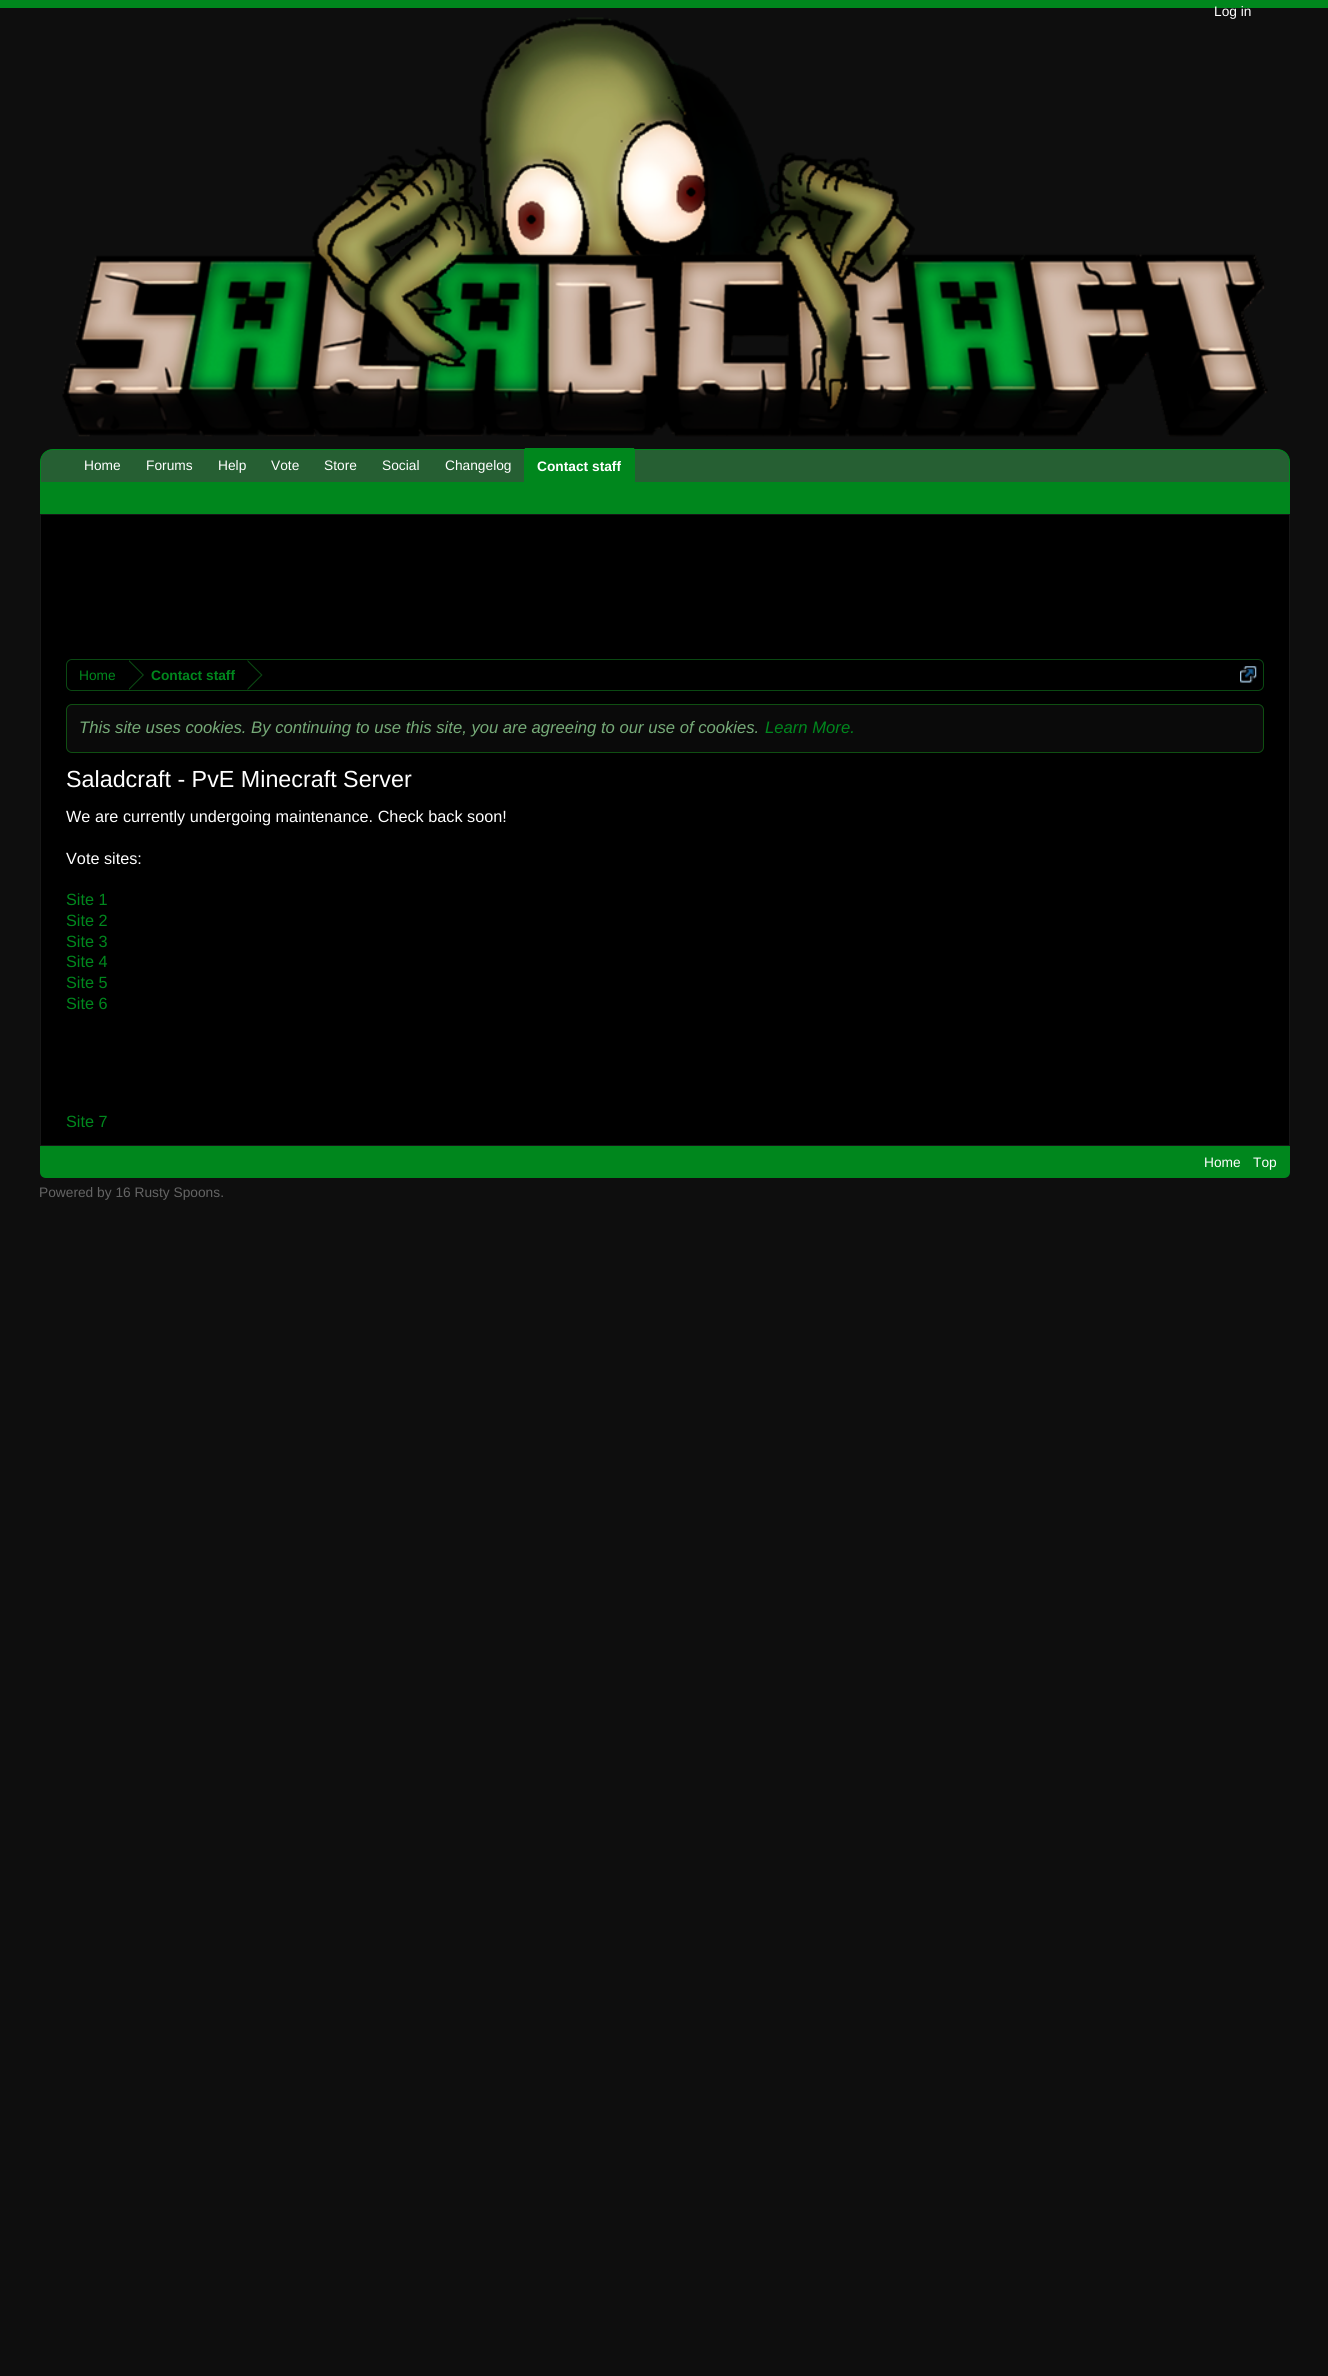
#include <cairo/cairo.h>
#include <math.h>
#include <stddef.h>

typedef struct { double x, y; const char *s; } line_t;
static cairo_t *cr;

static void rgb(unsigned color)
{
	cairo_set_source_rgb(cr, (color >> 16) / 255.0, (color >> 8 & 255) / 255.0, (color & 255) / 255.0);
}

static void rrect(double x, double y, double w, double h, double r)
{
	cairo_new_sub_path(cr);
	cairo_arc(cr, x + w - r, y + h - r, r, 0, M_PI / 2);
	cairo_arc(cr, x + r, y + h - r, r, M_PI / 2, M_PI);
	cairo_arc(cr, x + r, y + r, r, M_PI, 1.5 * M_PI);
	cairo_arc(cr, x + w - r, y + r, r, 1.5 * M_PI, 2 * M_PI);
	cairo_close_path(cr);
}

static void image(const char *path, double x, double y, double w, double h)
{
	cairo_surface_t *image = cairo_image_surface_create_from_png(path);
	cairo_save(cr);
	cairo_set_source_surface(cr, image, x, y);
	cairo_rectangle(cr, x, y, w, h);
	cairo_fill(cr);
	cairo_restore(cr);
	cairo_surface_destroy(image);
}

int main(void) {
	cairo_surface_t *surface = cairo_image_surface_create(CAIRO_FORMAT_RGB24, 1328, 2376);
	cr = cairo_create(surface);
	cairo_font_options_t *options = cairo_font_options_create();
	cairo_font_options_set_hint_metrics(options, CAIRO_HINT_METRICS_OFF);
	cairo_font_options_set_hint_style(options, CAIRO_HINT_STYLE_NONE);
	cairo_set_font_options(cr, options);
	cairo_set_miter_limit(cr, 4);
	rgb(0x0e0e0e);
	cairo_paint(cr);
	rgb(0x00871d);
	cairo_rectangle(cr, 0, 0, 1328, 8);
	cairo_fill(cr);
	image("img/1.png", 62, 17, 1206, 420);
	rgb(0x265f33);
	cairo_new_path(cr);
	cairo_move_to(cr, 53, 449.5);
	cairo_line_to(cr, 1277, 449.5);
	cairo_curve_to(cr, 1284, 449.5, 1289.5, 455, 1289.5, 462);
	cairo_line_to(cr, 1289.5, 482.5);
	cairo_line_to(cr, 40.5, 482.5);
	cairo_line_to(cr, 40.5, 462);
	cairo_curve_to(cr, 40.5, 455, 46, 449.5, 53, 449.5);
	cairo_close_path(cr);
	cairo_fill_preserve(cr);
	rgb(0x00871d);
	cairo_set_line_width(cr, 1);
	cairo_stroke(cr);
	cairo_new_path(cr);
	cairo_move_to(cr, 526.5, 448);
	cairo_line_to(cr, 632.5, 448);
	cairo_curve_to(cr, 634, 448, 635, 449, 635, 450.5);
	cairo_line_to(cr, 635, 483);
	cairo_line_to(cr, 524, 483);
	cairo_line_to(cr, 524, 450.5);
	cairo_curve_to(cr, 524, 449, 525, 448, 526.5, 448);
	cairo_close_path(cr);
	cairo_fill(cr);
	cairo_rectangle(cr, 525, 448, 109, 1);
	cairo_fill(cr);
	cairo_rectangle(cr, 40, 483, 1250, 31);
	cairo_fill(cr);
	rgb(0x000000);
	cairo_rectangle(cr, 40.5, 514.5, 1249, 631);
	cairo_fill_preserve(cr);
	rgb(0x161616);
	cairo_stroke(cr);
	rrect(66.5, 659.5, 1197, 31, 5.5);
	rgb(0x0a4812);
	cairo_stroke(cr);
	cairo_save(cr);
	rrect(68, 660, 1195, 30, 5);
	cairo_clip(cr);
	rgb(0x000000);
	cairo_new_path(cr);
	cairo_move_to(cr, 73, 660);
	cairo_line_to(cr, 129, 660);
	cairo_line_to(cr, 129, 691);
	cairo_line_to(cr, 73, 691);
	cairo_curve_to(cr, 70, 691, 68, 689, 68, 686);
	cairo_line_to(cr, 68, 665);
	cairo_curve_to(cr, 68, 662, 70, 660, 73, 660);
	cairo_close_path(cr);
	cairo_fill(cr);
	cairo_restore(cr);
	cairo_new_path(cr);
	cairo_move_to(cr, 129, 690);
	cairo_line_to(cr, 129, 660);
	cairo_line_to(cr, 144, 675);
	cairo_close_path(cr);
	cairo_fill(cr);
	rgb(0x000000);
	cairo_new_path(cr);
	cairo_move_to(cr, 127.5, 690);
	cairo_line_to(cr, 127.5, 660);
	cairo_line_to(cr, 142.5, 675);
	cairo_close_path(cr);
	cairo_fill(cr);
	rgb(0x0a4812);
	cairo_new_path(cr);
	cairo_move_to(cr, 247.5, 690);
	cairo_line_to(cr, 247.5, 660);
	cairo_line_to(cr, 262.5, 675);
	cairo_close_path(cr);
	cairo_fill(cr);
	rgb(0x000000);
	cairo_new_path(cr);
	cairo_move_to(cr, 246, 690);
	cairo_line_to(cr, 246, 660);
	cairo_line_to(cr, 261, 675);
	cairo_close_path(cr);
	cairo_fill(cr);
	image("img/2.png", 1240, 666, 17, 17);
	rgb(0x0a0a0a);
	rrect(66.5, 704.5, 1197, 48, 5.5);
	cairo_fill_preserve(cr);
	rgb(0x0f4f12);
	cairo_stroke(cr);
	rgb(0x00871d);
	cairo_new_path(cr);
	cairo_move_to(cr, 40, 1146);
	cairo_line_to(cr, 1290, 1146);
	cairo_line_to(cr, 1290, 1172);
	cairo_curve_to(cr, 1290, 1175.5, 1287.5, 1178, 1284, 1178);
	cairo_line_to(cr, 46, 1178);
	cairo_curve_to(cr, 42.5, 1178, 40, 1175.5, 40, 1172);
	cairo_close_path(cr);
	cairo_fill(cr);
	cairo_select_font_face(cr, "Liberation Sans", CAIRO_FONT_SLANT_NORMAL, CAIRO_FONT_WEIGHT_NORMAL);
	cairo_set_font_size(cr, 13.75);
	rgb(0xffffff);
	{
		static const line_t items[] = {
			{1214, 16, "Log in"},
			{84, 470, "Home"},
			{146, 470, "Forums"},
			{218, 470, "Help"},
			{271, 470, "Vote"},
			{324, 470, "Store"},
			{382, 470, "Social"},
			{445, 470, "Changelog"},
		};
		for (size_t i = 0; i < sizeof items / sizeof *items; i++) {
			cairo_move_to(cr, items[i].x, items[i].y);
			cairo_show_text(cr, items[i].s);
		}
	}
	cairo_select_font_face(cr, "Liberation Sans", CAIRO_FONT_SLANT_NORMAL, CAIRO_FONT_WEIGHT_BOLD);
	cairo_move_to(cr, 537, 471);
	cairo_show_text(cr, "Contact staff");
	cairo_select_font_face(cr, "Liberation Sans", CAIRO_FONT_SLANT_NORMAL, CAIRO_FONT_WEIGHT_NORMAL);
	rgb(0x00871d);
	cairo_move_to(cr, 79, 680);
	cairo_show_text(cr, "Home");
	cairo_select_font_face(cr, "Liberation Sans", CAIRO_FONT_SLANT_NORMAL, CAIRO_FONT_WEIGHT_BOLD);
	cairo_move_to(cr, 151, 680);
	cairo_show_text(cr, "Contact staff");
	cairo_select_font_face(cr, "Liberation Sans", CAIRO_FONT_SLANT_ITALIC, CAIRO_FONT_WEIGHT_NORMAL);
	cairo_set_font_size(cr, 16.65);
	rgb(0x76ab78);
	cairo_move_to(cr, 79, 733);
	cairo_show_text(cr, "This site uses cookies. By continuing to use this site, you are agreeing to our use of cookies.");
	rgb(0x00871d);
	cairo_move_to(cr, 765, 733);
	cairo_show_text(cr, "Learn More.");
	cairo_select_font_face(cr, "Liberation Sans", CAIRO_FONT_SLANT_NORMAL, CAIRO_FONT_WEIGHT_NORMAL);
	cairo_set_font_size(cr, 23.3);
	rgb(0xffffff);
	cairo_move_to(cr, 66, 787);
	cairo_show_text(cr, "Saladcraft - PvE Minecraft Server");
	cairo_set_font_size(cr, 16.25);
	cairo_move_to(cr, 66, 822);
	cairo_show_text(cr, "We are currently undergoing maintenance. Check back soon!");
	cairo_move_to(cr, 66, 864);
	cairo_show_text(cr, "Vote sites:");
	rgb(0x00871d);
	{
		static const line_t items[] = {
			{66, 905, "Site 1"},
			{66, 926, "Site 2"},
			{66, 947, "Site 3"},
			{66, 967, "Site 4"},
			{66, 988, "Site 5"},
			{66, 1009, "Site 6"},
			{66, 1127, "Site 7"},
		};
		for (size_t i = 0; i < sizeof items / sizeof *items; i++) {
			cairo_move_to(cr, items[i].x, items[i].y);
			cairo_show_text(cr, items[i].s);
		}
	}
	cairo_set_font_size(cr, 13.75);
	rgb(0xffffff);
	cairo_move_to(cr, 1204, 1167);
	cairo_show_text(cr, "Home");
	cairo_move_to(cr, 1253, 1167);
	cairo_show_text(cr, "Top");
	rgb(0x646464);
	cairo_move_to(cr, 39, 1197);
	cairo_show_text(cr, "Powered by 16 Rusty Spoons.");
	cairo_surface_write_to_png(surface, "page.png");
	cairo_font_options_destroy(options);
	cairo_destroy(cr);
	cairo_surface_destroy(surface);
	return 0;
}
